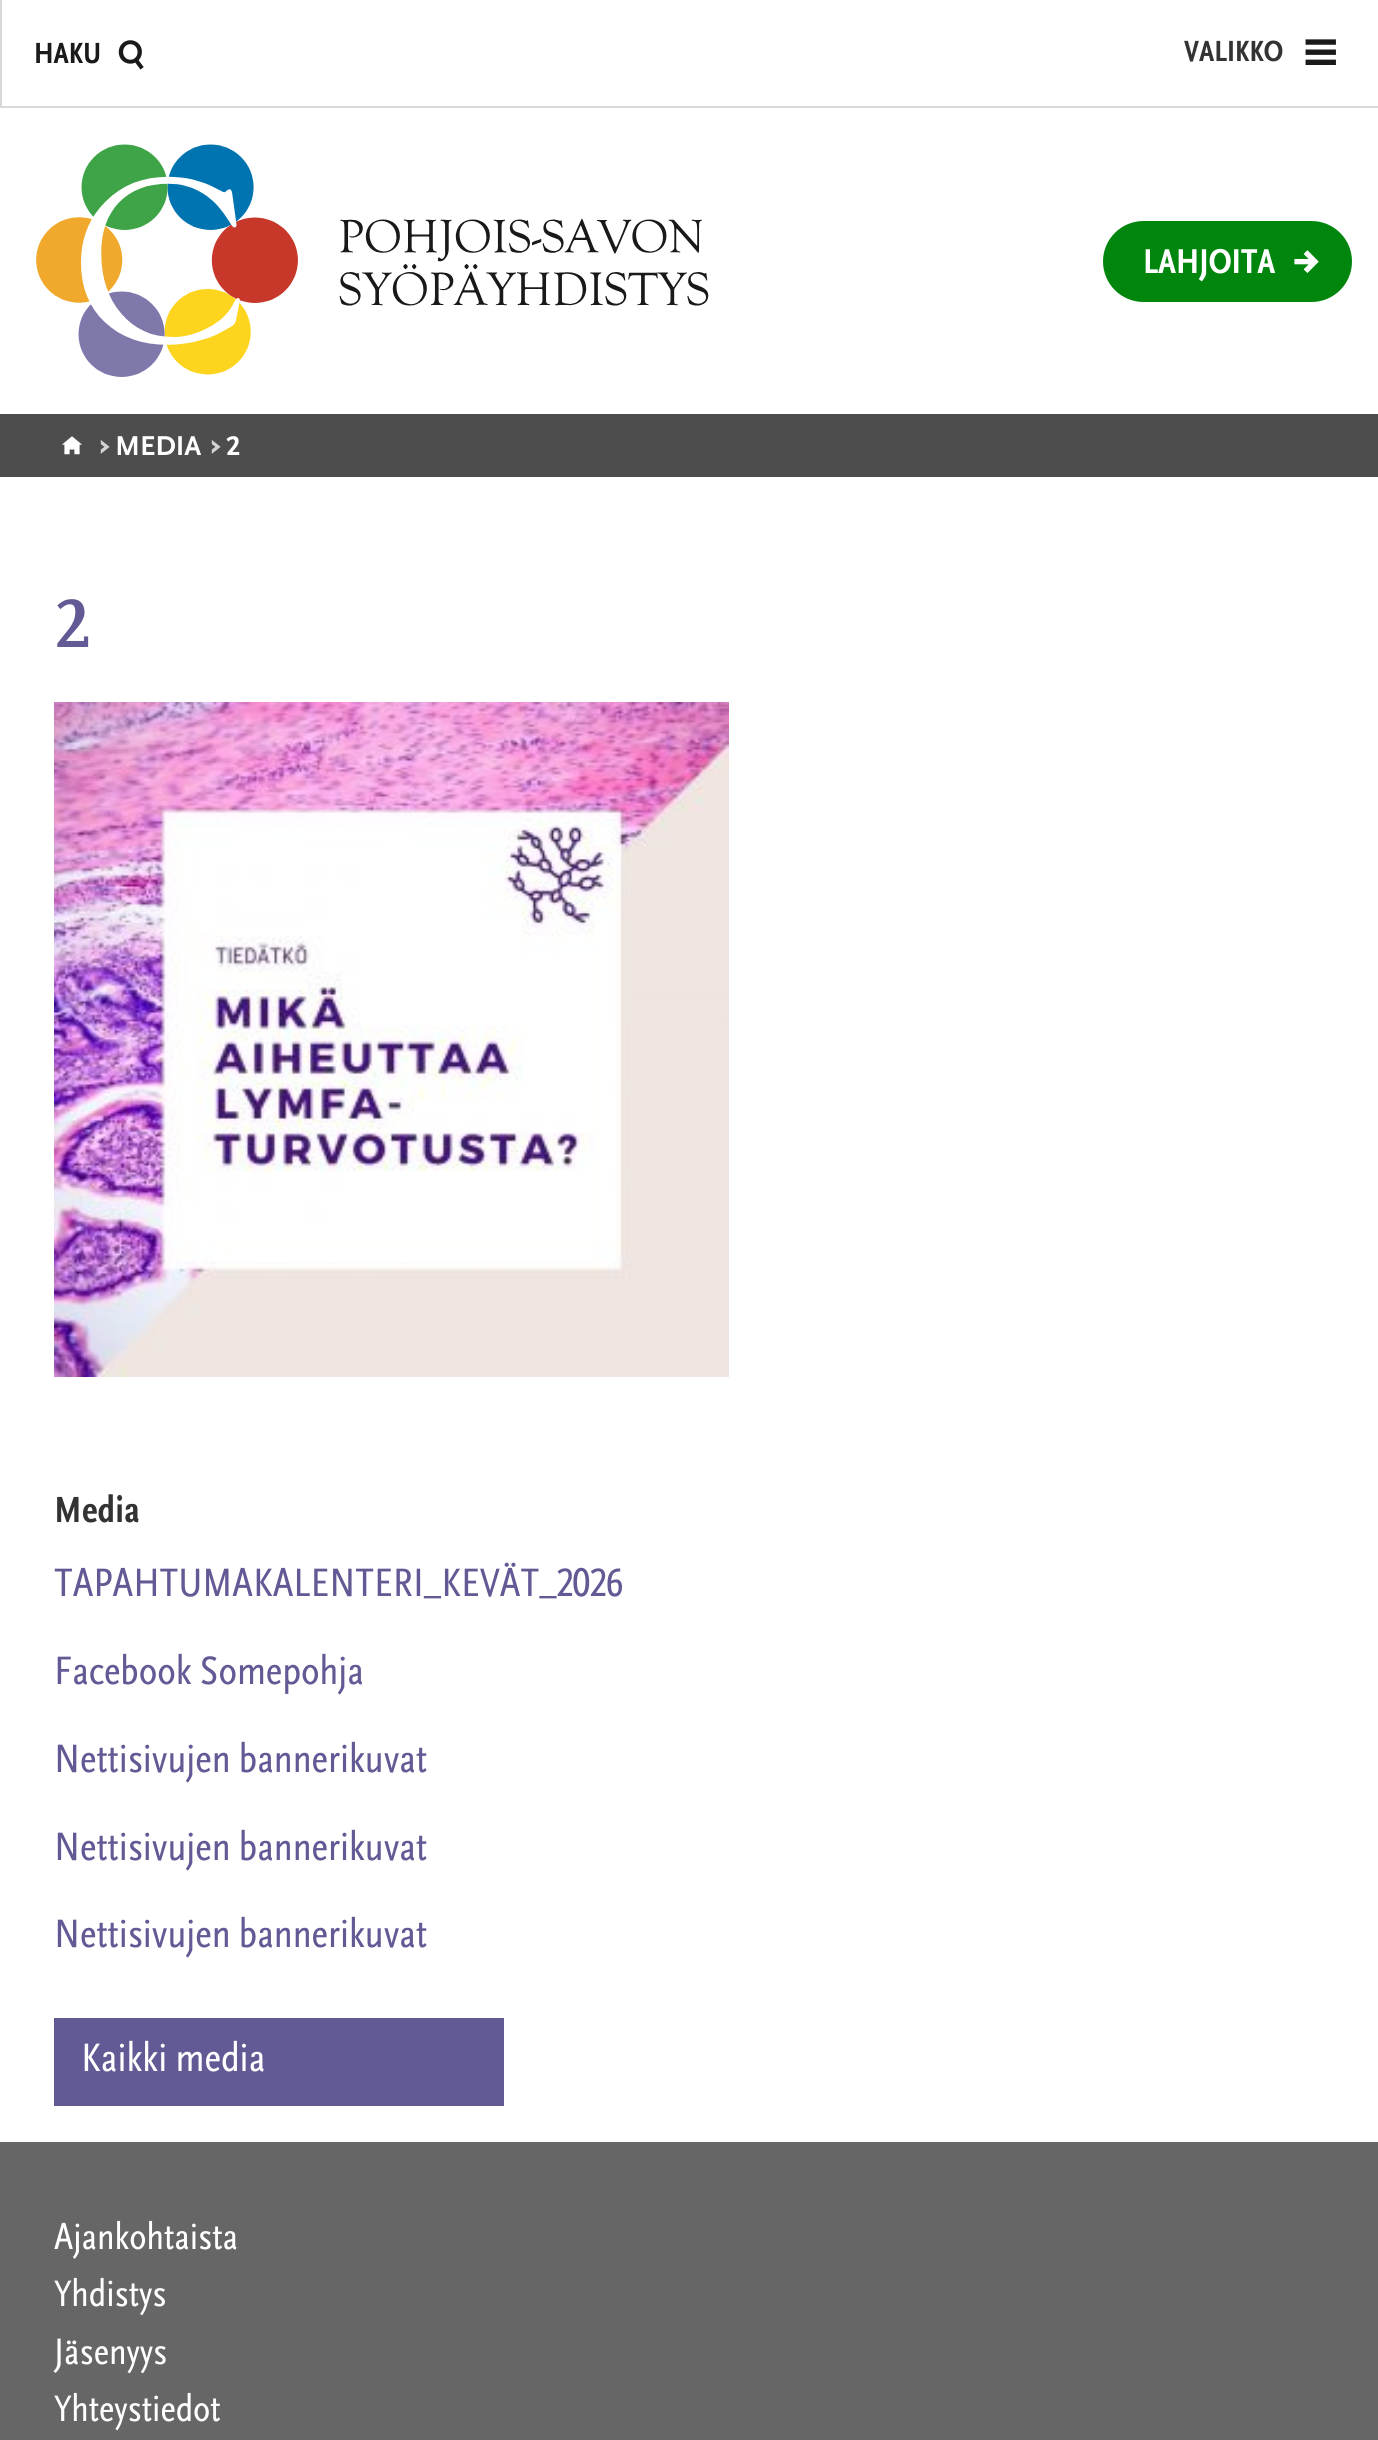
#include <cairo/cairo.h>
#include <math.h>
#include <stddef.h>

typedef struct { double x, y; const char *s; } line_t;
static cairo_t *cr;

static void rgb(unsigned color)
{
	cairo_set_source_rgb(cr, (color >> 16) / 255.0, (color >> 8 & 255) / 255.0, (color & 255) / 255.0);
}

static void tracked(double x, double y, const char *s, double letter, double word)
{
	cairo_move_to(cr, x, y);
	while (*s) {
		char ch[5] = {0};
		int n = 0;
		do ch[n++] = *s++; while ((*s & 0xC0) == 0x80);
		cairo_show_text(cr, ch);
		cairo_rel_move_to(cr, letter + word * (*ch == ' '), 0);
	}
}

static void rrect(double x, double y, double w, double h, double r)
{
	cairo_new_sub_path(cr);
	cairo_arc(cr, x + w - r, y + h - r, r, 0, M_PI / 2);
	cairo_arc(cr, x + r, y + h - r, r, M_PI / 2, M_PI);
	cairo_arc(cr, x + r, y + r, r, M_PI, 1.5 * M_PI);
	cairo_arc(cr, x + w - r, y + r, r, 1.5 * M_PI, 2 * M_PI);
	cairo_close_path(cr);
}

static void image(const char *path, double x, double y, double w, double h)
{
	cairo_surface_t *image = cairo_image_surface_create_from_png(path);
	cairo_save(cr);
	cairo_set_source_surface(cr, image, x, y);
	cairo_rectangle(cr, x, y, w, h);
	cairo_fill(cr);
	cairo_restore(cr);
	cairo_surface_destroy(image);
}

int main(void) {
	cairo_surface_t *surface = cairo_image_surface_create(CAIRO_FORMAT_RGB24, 1378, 2440);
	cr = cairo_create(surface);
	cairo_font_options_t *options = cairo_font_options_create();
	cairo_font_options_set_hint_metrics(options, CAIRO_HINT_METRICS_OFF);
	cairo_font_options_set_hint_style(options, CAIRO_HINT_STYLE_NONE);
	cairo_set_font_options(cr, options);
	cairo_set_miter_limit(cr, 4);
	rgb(0xffffff);
	cairo_paint(cr);
	rgb(0xd8d8d8);
	cairo_rectangle(cr, 0, 106, 1378, 2);
	cairo_fill(cr);
	cairo_rectangle(cr, 0, 0, 2, 106);
	cairo_fill(cr);
	rgb(0x00860c);
	rrect(1103, 221, 249, 81, 40.5);
	cairo_fill(cr);
	image("img/1.png", 36, 144, 673, 233);
	image("img/2.png", 1305, 39, 31, 26);
	rgb(0x4d4d4d);
	cairo_rectangle(cr, 0, 414, 1378, 63);
	cairo_fill(cr);
	image("img/3.png", 54, 702, 675, 675);
	rgb(0x625a95);
	cairo_rectangle(cr, 54, 2018, 450, 88);
	cairo_fill(cr);
	rgb(0x666666);
	cairo_rectangle(cr, 0, 2142, 1378, 298);
	cairo_fill(cr);
	cairo_select_font_face(cr, "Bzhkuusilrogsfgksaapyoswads", CAIRO_FONT_SLANT_NORMAL, CAIRO_FONT_WEIGHT_BOLD);
	cairo_set_font_size(cr, 30.5);
	rgb(0x1a1a1a);
	cairo_move_to(cr, 34, 63);
	cairo_show_text(cr, "HAKU");
	cairo_select_font_face(cr, "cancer", CAIRO_FONT_SLANT_NORMAL, CAIRO_FONT_WEIGHT_NORMAL);
	cairo_set_font_size(cr, 47);
	cairo_move_to(cr, 107, 74);
	cairo_show_text(cr, "↳");
	cairo_select_font_face(cr, "Bzhkuusilrogsfgksaapyoswads", CAIRO_FONT_SLANT_NORMAL, CAIRO_FONT_WEIGHT_BOLD);
	cairo_set_font_size(cr, 36);
	rgb(0xffffff);
	cairo_move_to(cr, 1143, 273);
	cairo_show_text(cr, "LAHJOITA");
	cairo_select_font_face(cr, "cancer", CAIRO_FONT_SLANT_NORMAL, CAIRO_FONT_WEIGHT_NORMAL);
	cairo_move_to(cr, 1289, 277);
	cairo_show_text(cr, "➜");
	cairo_select_font_face(cr, "Bzhkuusilrogsfgksaapyoswads", CAIRO_FONT_SLANT_NORMAL, CAIRO_FONT_WEIGHT_BOLD);
	cairo_set_font_size(cr, 30.5);
	rgb(0x333333);
	cairo_move_to(cr, 1184, 61);
	cairo_show_text(cr, "VALIKKO");
	cairo_select_font_face(cr, "cancer", CAIRO_FONT_SLANT_NORMAL, CAIRO_FONT_WEIGHT_NORMAL);
	cairo_set_font_size(cr, 36);
	rgb(0xffffff);
	cairo_move_to(cr, 54, 461);
	cairo_show_text(cr, "⇧");
	cairo_select_font_face(cr, "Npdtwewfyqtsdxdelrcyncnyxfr", CAIRO_FONT_SLANT_NORMAL, CAIRO_FONT_WEIGHT_BOLD);
	rgb(0xd3d3d3);
	cairo_move_to(cr, 99, 455);
	cairo_show_text(cr, "›");
	cairo_set_font_size(cr, 28.5);
	rgb(0xffffff);
	cairo_move_to(cr, 115, 455);
	cairo_show_text(cr, "MEDIA");
	cairo_set_font_size(cr, 36);
	rgb(0xd3d3d3);
	cairo_move_to(cr, 210, 455);
	cairo_show_text(cr, "›");
	cairo_set_font_size(cr, 28.5);
	rgb(0xffffff);
	cairo_move_to(cr, 226, 455);
	cairo_show_text(cr, "2");
	cairo_select_font_face(cr, "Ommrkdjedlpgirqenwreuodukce", CAIRO_FONT_SLANT_NORMAL, CAIRO_FONT_WEIGHT_BOLD);
	cairo_set_font_size(cr, 72);
	rgb(0x625a95);
	cairo_move_to(cr, 54, 647);
	cairo_show_text(cr, "2");
	cairo_select_font_face(cr, "Bzhkuusilrogsfgksaapyoswads", CAIRO_FONT_SLANT_NORMAL, CAIRO_FONT_WEIGHT_BOLD);
	cairo_set_font_size(cr, 38);
	rgb(0x333333);
	tracked(54, 1522, "Media", 0.5, 0);
	cairo_select_font_face(cr, "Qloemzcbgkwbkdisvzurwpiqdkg", CAIRO_FONT_SLANT_NORMAL, CAIRO_FONT_WEIGHT_NORMAL);
	cairo_set_font_size(cr, 41.4);
	rgb(0x625a95);
	{
		static const line_t items[] = {
			{54, 1596, "TAPAHTUMAKALENTERI_KEVÄT_2026"},
			{54, 1684, "Facebook Somepohja"},
			{54, 1772, "Nettisivujen bannerikuvat"},
			{54, 1860, "Nettisivujen bannerikuvat"},
			{54, 1947, "Nettisivujen bannerikuvat"},
		};
		for (size_t i = 0; i < sizeof items / sizeof *items; i++) {
			cairo_move_to(cr, items[i].x, items[i].y);
			cairo_show_text(cr, items[i].s);
		}
	}
	rgb(0xffffff);
	cairo_move_to(cr, 81, 2071);
	cairo_show_text(cr, "Kaikki media");
	cairo_set_font_size(cr, 38.5);
	{
		static const line_t items[] = {
			{54, 2249, "Ajankohtaista"},
			{54, 2306, "Yhdistys"},
			{54, 2364, "Jäsenyys"},
			{54, 2421, "Yhteystiedot"},
		};
		for (size_t i = 0; i < sizeof items / sizeof *items; i++) {
			cairo_move_to(cr, items[i].x, items[i].y);
			cairo_show_text(cr, items[i].s);
		}
	}
	cairo_surface_write_to_png(surface, "page.png");
	cairo_font_options_destroy(options);
	cairo_destroy(cr);
	cairo_surface_destroy(surface);
	return 0;
}
